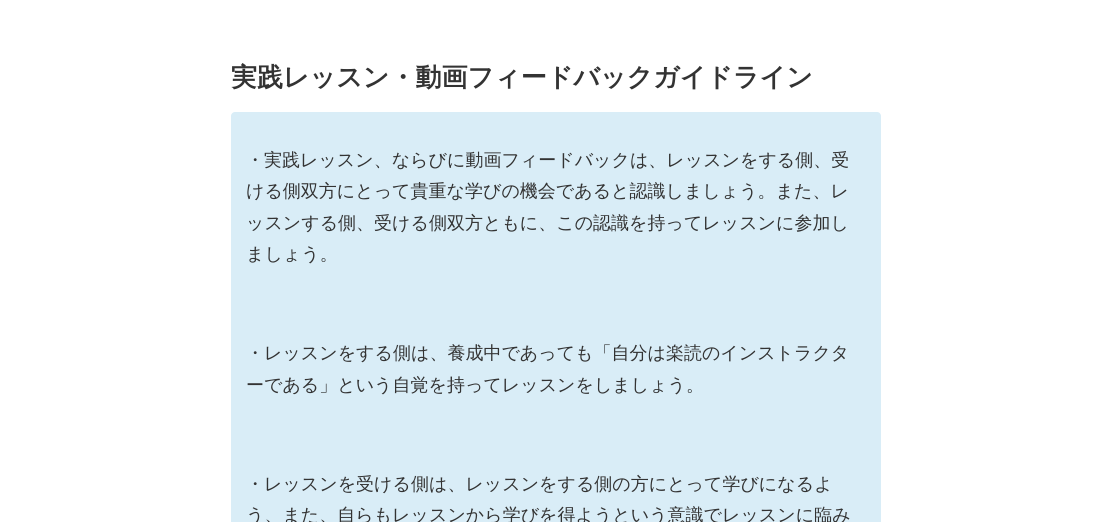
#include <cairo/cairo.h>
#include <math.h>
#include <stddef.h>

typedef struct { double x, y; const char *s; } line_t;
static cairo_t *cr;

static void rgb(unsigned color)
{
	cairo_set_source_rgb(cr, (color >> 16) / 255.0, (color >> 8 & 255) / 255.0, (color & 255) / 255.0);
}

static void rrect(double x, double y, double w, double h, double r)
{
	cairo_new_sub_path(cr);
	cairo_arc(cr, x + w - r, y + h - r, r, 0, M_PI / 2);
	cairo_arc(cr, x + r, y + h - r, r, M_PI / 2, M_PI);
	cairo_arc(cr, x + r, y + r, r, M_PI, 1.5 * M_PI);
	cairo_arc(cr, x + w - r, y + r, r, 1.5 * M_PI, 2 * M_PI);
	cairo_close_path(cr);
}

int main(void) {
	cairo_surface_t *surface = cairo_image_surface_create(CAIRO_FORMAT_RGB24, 1111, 522);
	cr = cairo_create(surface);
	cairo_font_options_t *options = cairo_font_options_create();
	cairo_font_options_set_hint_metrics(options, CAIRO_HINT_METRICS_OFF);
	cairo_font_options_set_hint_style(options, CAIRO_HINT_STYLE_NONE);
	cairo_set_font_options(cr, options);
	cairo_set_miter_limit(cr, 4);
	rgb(0xffffff);
	cairo_paint(cr);
	rgb(0xd9edf7);
	rrect(231, 112, 650, 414, 4);
	cairo_fill(cr);
	cairo_select_font_face(cr, "WenQuanYi Zen Hei", CAIRO_FONT_SLANT_NORMAL, CAIRO_FONT_WEIGHT_BOLD);
	cairo_set_font_size(cr, 26);
	rgb(0x333333);
	cairo_move_to(cr, 231, 86);
	cairo_show_text(cr, "実践レッスン・動画フィードバックガイドライン");
	cairo_select_font_face(cr, "WenQuanYi Zen Hei Medium", CAIRO_FONT_SLANT_NORMAL, CAIRO_FONT_WEIGHT_NORMAL);
	cairo_set_font_size(cr, 18);
	{
		static const line_t items[] = {
			{246, 166, "・実践レッスン、ならびに動画フィードバックは、レッスンをする側、受"},
			{246, 197, "ける側双方にとって貴重な学びの機会であると認識しましょう。また、レ"},
			{246, 229, "ッスンする側、受ける側双方ともに、この認識を持ってレッスンに参加し"},
			{246, 260, "ましょう。"},
			{246, 359, "・レッスンをする側は、養成中であっても「自分は楽読のインストラクタ"},
			{246, 391, "ーである」という自覚を持ってレッスンをしましょう。"},
			{246, 490, "・レッスンを受ける側は、レッスンをする側の方にとって学びになるよ"},
			{246, 521, "う、また、自らもレッスンから学びを得ようという意識でレッスンに臨み"},
		};
		for (size_t i = 0; i < sizeof items / sizeof *items; i++) {
			cairo_move_to(cr, items[i].x, items[i].y);
			cairo_show_text(cr, items[i].s);
		}
	}
	cairo_surface_write_to_png(surface, "page.png");
	cairo_font_options_destroy(options);
	cairo_destroy(cr);
	cairo_surface_destroy(surface);
	return 0;
}
